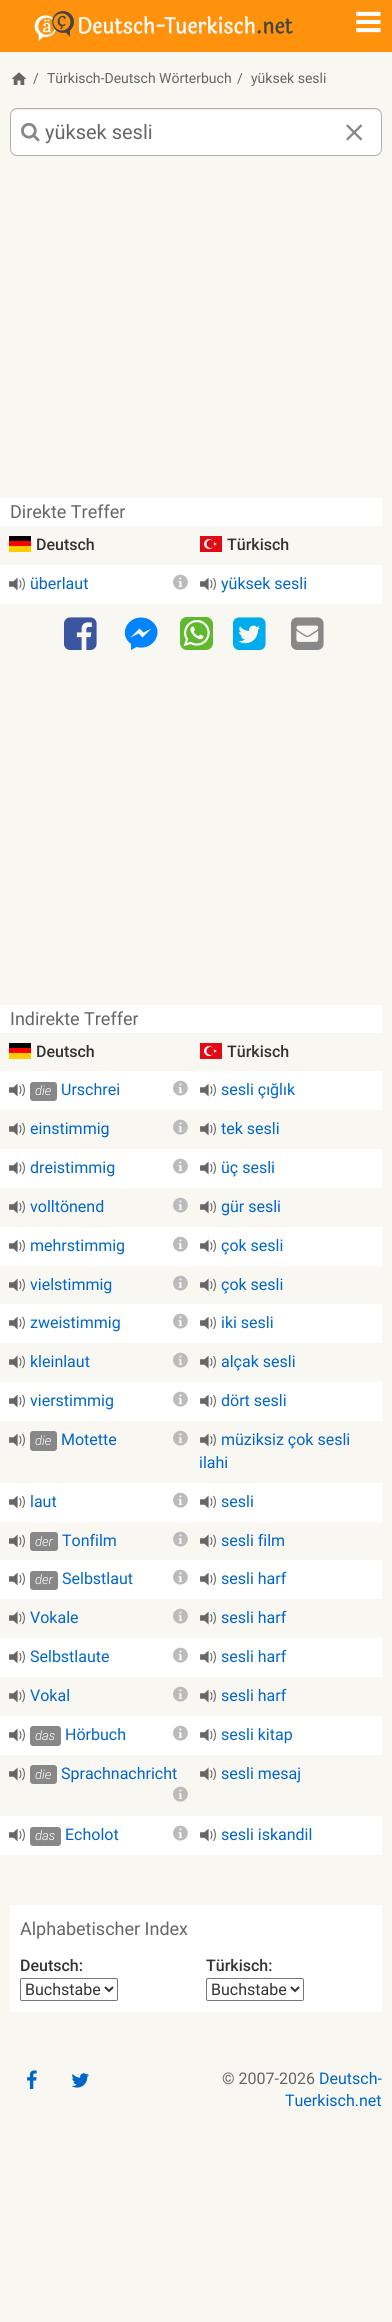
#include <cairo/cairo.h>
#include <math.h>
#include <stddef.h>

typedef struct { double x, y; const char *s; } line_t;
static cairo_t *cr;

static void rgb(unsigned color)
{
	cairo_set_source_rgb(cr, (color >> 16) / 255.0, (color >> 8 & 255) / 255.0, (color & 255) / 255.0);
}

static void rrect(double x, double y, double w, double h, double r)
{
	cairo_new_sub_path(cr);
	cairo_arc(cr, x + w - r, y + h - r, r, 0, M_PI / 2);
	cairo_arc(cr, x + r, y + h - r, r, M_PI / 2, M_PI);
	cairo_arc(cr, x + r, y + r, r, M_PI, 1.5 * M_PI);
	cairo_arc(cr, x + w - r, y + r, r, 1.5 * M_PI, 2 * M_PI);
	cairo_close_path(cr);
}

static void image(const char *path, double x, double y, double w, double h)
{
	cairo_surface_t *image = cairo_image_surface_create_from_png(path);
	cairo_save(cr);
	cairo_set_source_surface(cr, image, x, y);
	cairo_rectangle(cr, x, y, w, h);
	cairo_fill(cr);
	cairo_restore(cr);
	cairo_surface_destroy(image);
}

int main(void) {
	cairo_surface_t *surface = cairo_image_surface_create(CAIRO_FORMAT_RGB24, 392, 2322);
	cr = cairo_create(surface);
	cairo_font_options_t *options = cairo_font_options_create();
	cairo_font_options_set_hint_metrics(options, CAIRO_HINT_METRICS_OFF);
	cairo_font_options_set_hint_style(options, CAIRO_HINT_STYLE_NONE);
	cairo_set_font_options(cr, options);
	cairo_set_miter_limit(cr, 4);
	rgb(0xf8f7f2);
	cairo_paint(cr);
	rgb(0xff920d);
	cairo_rectangle(cr, 0, 0, 392, 52);
	cairo_fill(cr);
	image("img/1.png", 34, 11, 259, 30);
	image("img/2.png", 356, 11, 25, 22);
	image("img/3.png", 11, 72, 16, 13);
	rgb(0xffffff);
	rrect(10, 108, 372, 48, 7);
	cairo_fill(cr);
	rgb(0xececec);
	cairo_new_path(cr);
	cairo_move_to(cr, 17, 110);
	cairo_line_to(cr, 375, 110);
	cairo_curve_to(cr, 378, 110, 381, 113, 381, 116);
	cairo_curve_to(cr, 381, 112, 379, 109, 375, 109);
	cairo_line_to(cr, 17, 109);
	cairo_curve_to(cr, 13, 109, 11, 112, 11, 116);
	cairo_curve_to(cr, 11, 113, 14, 110, 17, 110);
	cairo_close_path(cr);
	cairo_fill(cr);
	rrect(10.5, 108.5, 371, 47, 6.5);
	rgb(0xb1b1b1);
	cairo_set_line_width(cr, 1);
	cairo_stroke(cr);
	image("img/4.png", 21, 122, 19, 20);
	image("img/5.png", 346, 124, 17, 17);
	rgb(0xffffff);
	cairo_rectangle(cr, 0, 498, 382, 106);
	cairo_fill(cr);
	rgb(0xf8f7f2);
	cairo_rectangle(cr, 0, 526, 382, 39);
	cairo_fill(cr);
	image("img/6.png", 9, 536, 22, 16);
	image("img/7.png", 200, 536, 22, 16);
	image("img/8.png", 9, 577, 16, 14);
	image("img/9.png", 173, 574, 15, 16);
	image("img/8.png", 200, 577, 16, 14);
	image("img/10.png", 64, 617, 33, 33);
	rgb(0x0084ff);
	cairo_new_path(cr);
	cairo_move_to(cr, 141, 617.5);
	cairo_curve_to(cr, 126.5, 617.5, 118.5, 635, 131, 644);
	cairo_line_to(cr, 131, 650);
	cairo_line_to(cr, 136.5, 647);
	cairo_curve_to(cr, 153, 651.5, 165.5, 631.5, 151.5, 621);
	cairo_curve_to(cr, 148.5, 618.5, 144.5, 617.5, 141, 617.5);
	cairo_close_path(cr);
	cairo_move_to(cr, 142.5, 637.5);
	cairo_line_to(cr, 138.5, 633.5);
	cairo_line_to(cr, 130.5, 637.5);
	cairo_line_to(cr, 139.5, 628.5);
	cairo_line_to(cr, 143.5, 632.5);
	cairo_line_to(cr, 151.5, 628.5);
	cairo_close_path(cr);
	cairo_fill(cr);
	rgb(0x60b82d);
	rrect(180, 617, 33, 33, 7);
	cairo_fill(cr);
	image("img/11.png", 183, 620, 27, 27);
	image("img/12.png", 233, 617, 33, 33);
	image("img/13.png", 291, 617, 33, 33);
	rgb(0xffffff);
	cairo_rectangle(cr, 0, 1005, 382, 850);
	cairo_fill(cr);
	rgb(0xf8f7f2);
	cairo_rectangle(cr, 0, 1033, 382, 38);
	cairo_fill(cr);
	image("img/6.png", 9, 1043, 22, 16);
	image("img/7.png", 200, 1043, 22, 16);
	image("img/8.png", 9, 1083, 16, 14);
	rgb(0x888888);
	rrect(30, 1082, 27, 19, 3);
	cairo_fill(cr);
	image("img/9.png", 173, 1080, 15, 16);
	image("img/8.png", 200, 1083, 16, 14);
	rgb(0xf8f7f2);
	cairo_rectangle(cr, 0, 1110, 382, 39);
	cairo_fill(cr);
	image("img/14.png", 9, 1122, 16, 14);
	image("img/15.png", 173, 1119, 15, 16);
	image("img/14.png", 200, 1122, 16, 14);
	image("img/8.png", 9, 1161, 16, 14);
	image("img/9.png", 173, 1158, 15, 16);
	image("img/8.png", 200, 1161, 16, 14);
	cairo_rectangle(cr, 0, 1188, 382, 39);
	cairo_fill(cr);
	image("img/14.png", 9, 1200, 16, 14);
	image("img/15.png", 173, 1197, 15, 16);
	image("img/14.png", 200, 1200, 16, 14);
	image("img/8.png", 9, 1239, 16, 14);
	image("img/9.png", 173, 1236, 15, 16);
	image("img/8.png", 200, 1239, 16, 14);
	cairo_rectangle(cr, 0, 1266, 382, 38);
	cairo_fill(cr);
	image("img/14.png", 9, 1278, 16, 14);
	image("img/15.png", 173, 1275, 15, 16);
	image("img/14.png", 200, 1278, 16, 14);
	image("img/8.png", 9, 1316, 16, 14);
	image("img/9.png", 173, 1313, 15, 16);
	image("img/8.png", 200, 1316, 16, 14);
	cairo_rectangle(cr, 0, 1343, 382, 39);
	cairo_fill(cr);
	image("img/14.png", 9, 1355, 16, 14);
	image("img/15.png", 173, 1352, 15, 16);
	image("img/14.png", 200, 1355, 16, 14);
	image("img/8.png", 9, 1394, 16, 14);
	image("img/9.png", 173, 1391, 15, 16);
	image("img/8.png", 200, 1394, 16, 14);
	cairo_rectangle(cr, 0, 1421, 382, 62);
	cairo_fill(cr);
	image("img/14.png", 9, 1433, 16, 14);
	rgb(0x888888);
	rrect(30, 1431, 27, 20, 3);
	cairo_fill(cr);
	image("img/15.png", 173, 1430, 15, 16);
	image("img/14.png", 200, 1433, 16, 14);
	image("img/8.png", 9, 1495, 16, 14);
	image("img/9.png", 173, 1492, 15, 16);
	image("img/8.png", 200, 1495, 16, 14);
	rgb(0xf8f7f2);
	cairo_rectangle(cr, 0, 1522, 382, 38);
	cairo_fill(cr);
	image("img/14.png", 9, 1534, 16, 14);
	rgb(0x888888);
	rrect(30, 1532, 28, 19, 3);
	cairo_fill(cr);
	image("img/15.png", 173, 1531, 15, 16);
	image("img/14.png", 200, 1534, 16, 14);
	image("img/8.png", 9, 1572, 16, 14);
	rrect(30, 1571, 28, 19, 3);
	cairo_fill(cr);
	image("img/9.png", 173, 1569, 15, 16);
	image("img/8.png", 200, 1572, 16, 14);
	rgb(0xf8f7f2);
	cairo_rectangle(cr, 0, 1599, 382, 39);
	cairo_fill(cr);
	image("img/14.png", 9, 1611, 16, 14);
	image("img/15.png", 173, 1608, 15, 16);
	image("img/14.png", 200, 1611, 16, 14);
	image("img/8.png", 9, 1650, 16, 14);
	image("img/9.png", 173, 1647, 15, 16);
	image("img/8.png", 200, 1650, 16, 14);
	cairo_rectangle(cr, 0, 1677, 382, 39);
	cairo_fill(cr);
	image("img/14.png", 9, 1689, 16, 14);
	image("img/15.png", 173, 1686, 15, 16);
	image("img/14.png", 200, 1689, 16, 14);
	image("img/8.png", 9, 1728, 16, 14);
	rgb(0x888888);
	rrect(30, 1726, 31, 20, 3);
	cairo_fill(cr);
	image("img/9.png", 173, 1725, 15, 16);
	image("img/8.png", 200, 1728, 16, 14);
	rgb(0xf8f7f2);
	cairo_rectangle(cr, 0, 1755, 382, 61);
	cairo_fill(cr);
	image("img/14.png", 9, 1767, 16, 14);
	rgb(0x888888);
	rrect(30, 1765, 27, 19, 3);
	cairo_fill(cr);
	image("img/15.png", 173, 1786, 15, 16);
	image("img/14.png", 200, 1767, 16, 14);
	image("img/8.png", 9, 1828, 16, 14);
	rrect(30, 1827, 31, 19, 3);
	cairo_fill(cr);
	image("img/9.png", 173, 1825, 15, 16);
	image("img/8.png", 200, 1828, 16, 14);
	rgb(0xffffff);
	cairo_rectangle(cr, 10, 1905, 372, 107);
	cairo_fill(cr);
	rrect(20.5, 1978.5, 97, 22, 1.5);
	rgb(0x767676);
	cairo_stroke(cr);
	cairo_new_path(cr);
	cairo_move_to(cr, 105, 1987);
	cairo_line_to(cr, 109, 1991);
	cairo_line_to(cr, 113, 1987);
	rgb(0x333333);
	cairo_set_line_width(cr, 2);
	cairo_stroke(cr);
	rrect(206.5, 1978.5, 97, 22, 1.5);
	rgb(0x767676);
	cairo_set_line_width(cr, 1);
	cairo_stroke(cr);
	cairo_new_path(cr);
	cairo_move_to(cr, 291, 1987);
	cairo_line_to(cr, 295, 1991);
	cairo_line_to(cr, 299, 1987);
	rgb(0x333333);
	cairo_set_line_width(cr, 2);
	cairo_stroke(cr);
	image("img/16.png", 27, 2070, 10, 19);
	image("img/17.png", 71, 2073, 18, 15);
	cairo_select_font_face(cr, "Roboto", CAIRO_FONT_SLANT_NORMAL, CAIRO_FONT_WEIGHT_NORMAL);
	cairo_set_font_size(cr, 14);
	rgb(0x666666);
	{
		static const line_t items[] = {
			{33, 83, "/"},
			{47, 83, "Türkisch-Deutsch Wörterbuch"},
			{237, 83, "/"},
			{251, 83, "yüksek sesli"},
		};
		for (size_t i = 0; i < sizeof items / sizeof *items; i++) {
			cairo_move_to(cr, items[i].x, items[i].y);
			cairo_show_text(cr, items[i].s);
		}
	}
	cairo_set_font_size(cr, 20);
	cairo_move_to(cr, 45, 139);
	cairo_show_text(cr, "yüksek sesli");
	cairo_set_font_size(cr, 18);
	cairo_move_to(cr, 10, 518);
	cairo_show_text(cr, "Direkte Treffer");
	cairo_select_font_face(cr, "Roboto Medium", CAIRO_FONT_SLANT_NORMAL, CAIRO_FONT_WEIGHT_NORMAL);
	cairo_set_font_size(cr, 16);
	rgb(0x333333);
	cairo_move_to(cr, 36, 550);
	cairo_show_text(cr, "Deutsch");
	cairo_move_to(cr, 227, 550);
	cairo_show_text(cr, "Türkisch");
	cairo_select_font_face(cr, "Roboto", CAIRO_FONT_SLANT_NORMAL, CAIRO_FONT_WEIGHT_NORMAL);
	rgb(0x0066cc);
	cairo_move_to(cr, 30, 589);
	cairo_show_text(cr, "überlaut");
	cairo_move_to(cr, 221, 589);
	cairo_show_text(cr, "yüksek sesli");
	cairo_set_font_size(cr, 18);
	rgb(0x666666);
	cairo_move_to(cr, 10, 1025);
	cairo_show_text(cr, "Indirekte Treffer");
	cairo_select_font_face(cr, "Roboto Medium", CAIRO_FONT_SLANT_NORMAL, CAIRO_FONT_WEIGHT_NORMAL);
	cairo_set_font_size(cr, 16);
	rgb(0x333333);
	cairo_move_to(cr, 36, 1057);
	cairo_show_text(cr, "Deutsch");
	cairo_move_to(cr, 227, 1057);
	cairo_show_text(cr, "Türkisch");
	cairo_select_font_face(cr, "Roboto Light", CAIRO_FONT_SLANT_ITALIC, CAIRO_FONT_WEIGHT_NORMAL);
	cairo_set_font_size(cr, 13);
	rgb(0xffffff);
	cairo_move_to(cr, 35, 1095);
	cairo_show_text(cr, "die");
	cairo_select_font_face(cr, "Roboto", CAIRO_FONT_SLANT_NORMAL, CAIRO_FONT_WEIGHT_NORMAL);
	cairo_set_font_size(cr, 16);
	rgb(0x0066cc);
	{
		static const line_t items[] = {
			{61, 1095, "Urschrei"},
			{221, 1095, "sesli çığlık"},
			{30, 1134, "einstimmig"},
			{221, 1134, "tek sesli"},
			{30, 1173, "dreistimmig"},
			{221, 1173, "üç sesli"},
			{30, 1212, "volltönend"},
			{221, 1212, "gür sesli"},
			{30, 1251, "mehrstimmig"},
			{221, 1251, "çok sesli"},
			{30, 1290, "vielstimmig"},
			{221, 1290, "çok sesli"},
			{30, 1328, "zweistimmig"},
			{221, 1328, "iki sesli"},
			{30, 1367, "kleinlaut"},
			{221, 1367, "alçak sesli"},
			{30, 1406, "vierstimmig"},
			{221, 1406, "dört sesli"},
		};
		for (size_t i = 0; i < sizeof items / sizeof *items; i++) {
			cairo_move_to(cr, items[i].x, items[i].y);
			cairo_show_text(cr, items[i].s);
		}
	}
	cairo_select_font_face(cr, "Roboto Light", CAIRO_FONT_SLANT_ITALIC, CAIRO_FONT_WEIGHT_NORMAL);
	cairo_set_font_size(cr, 13);
	rgb(0xffffff);
	cairo_move_to(cr, 35, 1445);
	cairo_show_text(cr, "die");
	cairo_select_font_face(cr, "Roboto", CAIRO_FONT_SLANT_NORMAL, CAIRO_FONT_WEIGHT_NORMAL);
	cairo_set_font_size(cr, 16);
	rgb(0x0066cc);
	{
		static const line_t items[] = {
			{61, 1445, "Motette"},
			{221, 1445, "müziksiz çok sesli"},
			{199, 1468, "ilahi"},
			{30, 1507, "laut"},
			{221, 1507, "sesli"},
		};
		for (size_t i = 0; i < sizeof items / sizeof *items; i++) {
			cairo_move_to(cr, items[i].x, items[i].y);
			cairo_show_text(cr, items[i].s);
		}
	}
	cairo_select_font_face(cr, "Roboto Light", CAIRO_FONT_SLANT_ITALIC, CAIRO_FONT_WEIGHT_NORMAL);
	cairo_set_font_size(cr, 13);
	rgb(0xffffff);
	cairo_move_to(cr, 35, 1546);
	cairo_show_text(cr, "der");
	cairo_select_font_face(cr, "Roboto", CAIRO_FONT_SLANT_NORMAL, CAIRO_FONT_WEIGHT_NORMAL);
	cairo_set_font_size(cr, 16);
	rgb(0x0066cc);
	cairo_move_to(cr, 62, 1546);
	cairo_show_text(cr, "Tonfilm");
	cairo_move_to(cr, 221, 1546);
	cairo_show_text(cr, "sesli film");
	cairo_select_font_face(cr, "Roboto Light", CAIRO_FONT_SLANT_ITALIC, CAIRO_FONT_WEIGHT_NORMAL);
	cairo_set_font_size(cr, 13);
	rgb(0xffffff);
	cairo_move_to(cr, 35, 1584);
	cairo_show_text(cr, "der");
	cairo_select_font_face(cr, "Roboto", CAIRO_FONT_SLANT_NORMAL, CAIRO_FONT_WEIGHT_NORMAL);
	cairo_set_font_size(cr, 16);
	rgb(0x0066cc);
	{
		static const line_t items[] = {
			{62, 1584, "Selbstlaut"},
			{221, 1584, "sesli harf"},
			{30, 1623, "Vokale"},
			{221, 1623, "sesli harf"},
			{30, 1662, "Selbstlaute"},
			{221, 1662, "sesli harf"},
			{30, 1701, "Vokal"},
			{221, 1701, "sesli harf"},
		};
		for (size_t i = 0; i < sizeof items / sizeof *items; i++) {
			cairo_move_to(cr, items[i].x, items[i].y);
			cairo_show_text(cr, items[i].s);
		}
	}
	cairo_select_font_face(cr, "Roboto Light", CAIRO_FONT_SLANT_ITALIC, CAIRO_FONT_WEIGHT_NORMAL);
	cairo_set_font_size(cr, 13);
	rgb(0xffffff);
	cairo_move_to(cr, 35, 1740);
	cairo_show_text(cr, "das");
	cairo_select_font_face(cr, "Roboto", CAIRO_FONT_SLANT_NORMAL, CAIRO_FONT_WEIGHT_NORMAL);
	cairo_set_font_size(cr, 16);
	rgb(0x0066cc);
	cairo_move_to(cr, 65, 1740);
	cairo_show_text(cr, "Hörbuch");
	cairo_move_to(cr, 221, 1740);
	cairo_show_text(cr, "sesli kitap");
	cairo_select_font_face(cr, "Roboto Light", CAIRO_FONT_SLANT_ITALIC, CAIRO_FONT_WEIGHT_NORMAL);
	cairo_set_font_size(cr, 13);
	rgb(0xffffff);
	cairo_move_to(cr, 35, 1779);
	cairo_show_text(cr, "die");
	cairo_select_font_face(cr, "Roboto", CAIRO_FONT_SLANT_NORMAL, CAIRO_FONT_WEIGHT_NORMAL);
	cairo_set_font_size(cr, 16);
	rgb(0x0066cc);
	cairo_move_to(cr, 61, 1779);
	cairo_show_text(cr, "Sprachnachricht");
	cairo_move_to(cr, 221, 1779);
	cairo_show_text(cr, "sesli mesaj");
	cairo_select_font_face(cr, "Roboto Light", CAIRO_FONT_SLANT_ITALIC, CAIRO_FONT_WEIGHT_NORMAL);
	cairo_set_font_size(cr, 13);
	rgb(0xffffff);
	cairo_move_to(cr, 35, 1840);
	cairo_show_text(cr, "das");
	cairo_select_font_face(cr, "Roboto", CAIRO_FONT_SLANT_NORMAL, CAIRO_FONT_WEIGHT_NORMAL);
	cairo_set_font_size(cr, 16);
	rgb(0x0066cc);
	cairo_move_to(cr, 65, 1840);
	cairo_show_text(cr, "Echolot");
	cairo_move_to(cr, 221, 1840);
	cairo_show_text(cr, "sesli iskandil");
	cairo_set_font_size(cr, 18);
	rgb(0x666666);
	cairo_move_to(cr, 20, 1935);
	cairo_show_text(cr, "Alphabetischer Index");
	cairo_select_font_face(cr, "Roboto Medium", CAIRO_FONT_SLANT_NORMAL, CAIRO_FONT_WEIGHT_NORMAL);
	cairo_set_font_size(cr, 16);
	rgb(0x333333);
	cairo_move_to(cr, 20, 1971);
	cairo_show_text(cr, "Deutsch:");
	cairo_select_font_face(cr, "Roboto", CAIRO_FONT_SLANT_NORMAL, CAIRO_FONT_WEIGHT_NORMAL);
	cairo_move_to(cr, 25, 1995);
	cairo_show_text(cr, "Buchstabe");
	cairo_select_font_face(cr, "Roboto Medium", CAIRO_FONT_SLANT_NORMAL, CAIRO_FONT_WEIGHT_NORMAL);
	cairo_move_to(cr, 206, 1971);
	cairo_show_text(cr, "Türkisch:");
	cairo_select_font_face(cr, "Roboto", CAIRO_FONT_SLANT_NORMAL, CAIRO_FONT_WEIGHT_NORMAL);
	cairo_move_to(cr, 211, 1995);
	cairo_show_text(cr, "Buchstabe");
	rgb(0x666666);
	cairo_move_to(cr, 222, 2084);
	cairo_show_text(cr, "© 2007-2026");
	rgb(0x0066cc);
	cairo_move_to(cr, 319, 2084);
	cairo_show_text(cr, "Deutsch-");
	cairo_move_to(cr, 285, 2106);
	cairo_show_text(cr, "Tuerkisch.net");
	cairo_surface_write_to_png(surface, "page.png");
	cairo_font_options_destroy(options);
	cairo_destroy(cr);
	cairo_surface_destroy(surface);
	return 0;
}
